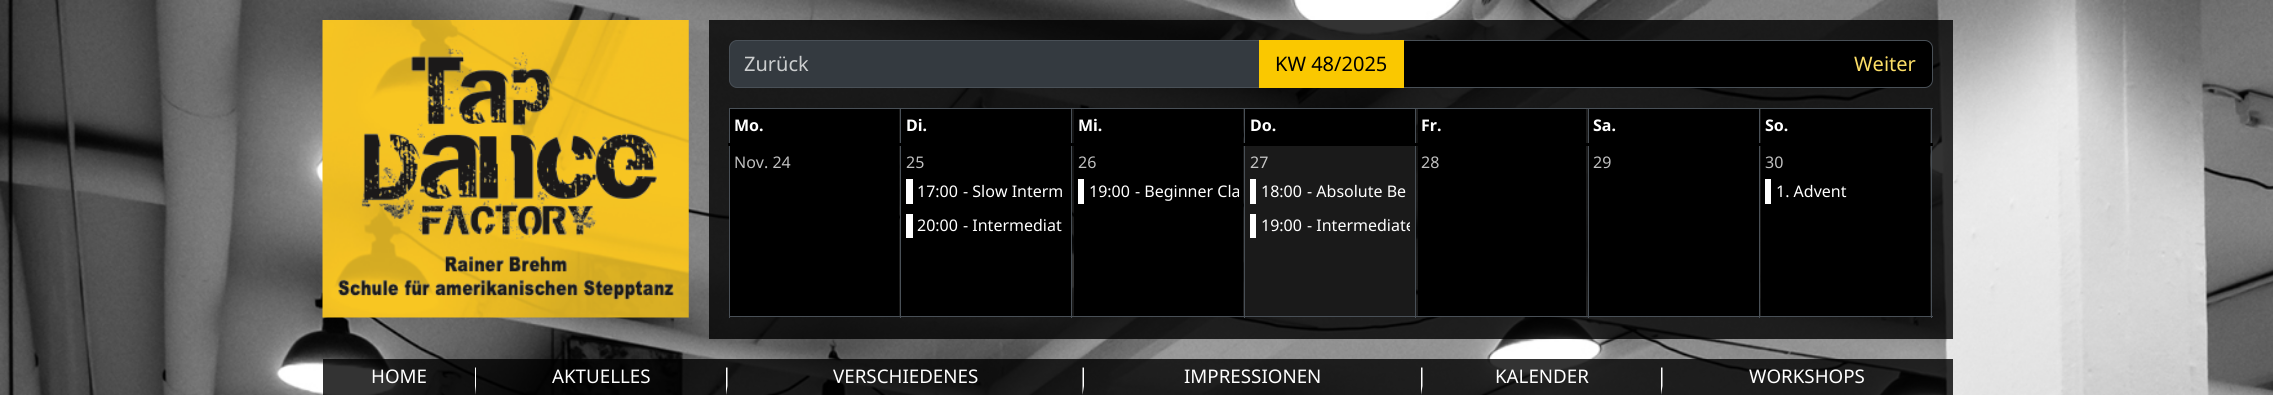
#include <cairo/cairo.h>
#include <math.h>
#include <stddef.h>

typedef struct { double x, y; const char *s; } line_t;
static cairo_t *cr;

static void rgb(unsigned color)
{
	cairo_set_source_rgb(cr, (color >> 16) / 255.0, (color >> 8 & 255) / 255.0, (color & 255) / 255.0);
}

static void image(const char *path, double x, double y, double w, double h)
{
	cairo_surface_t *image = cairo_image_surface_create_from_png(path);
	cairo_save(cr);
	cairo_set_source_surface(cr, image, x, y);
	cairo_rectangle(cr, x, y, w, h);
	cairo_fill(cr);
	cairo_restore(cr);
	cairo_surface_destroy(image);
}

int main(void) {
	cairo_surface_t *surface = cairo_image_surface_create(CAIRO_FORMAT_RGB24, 2273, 395);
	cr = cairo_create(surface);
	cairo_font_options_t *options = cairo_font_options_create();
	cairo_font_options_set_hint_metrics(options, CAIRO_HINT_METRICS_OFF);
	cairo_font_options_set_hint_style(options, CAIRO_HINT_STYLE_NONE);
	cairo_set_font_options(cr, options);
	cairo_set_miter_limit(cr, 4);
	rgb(0xffffff);
	cairo_paint(cr);
	image("img/1.png", 0, 0, 2273, 395);
	image("img/2.png", 322, 20, 367, 298);
	cairo_set_source_rgba(cr, 0, 0, 0, 0.8);
	cairo_rectangle(cr, 709, 20, 1244, 319);
	cairo_fill(cr);
	rgb(0x343a40);
	cairo_new_path(cr);
	cairo_move_to(cr, 737, 40.5);
	cairo_line_to(cr, 1259.5, 40.5);
	cairo_line_to(cr, 1259.5, 87.5);
	cairo_line_to(cr, 737, 87.5);
	cairo_curve_to(cr, 733, 87.5, 729.5, 84, 729.5, 80);
	cairo_line_to(cr, 729.5, 48);
	cairo_curve_to(cr, 729.5, 44, 733, 40.5, 737, 40.5);
	cairo_close_path(cr);
	cairo_fill_preserve(cr);
	rgb(0x495057);
	cairo_set_line_width(cr, 1);
	cairo_stroke(cr);
	rgb(0x000000);
	cairo_new_path(cr);
	cairo_move_to(cr, 1403.5, 40.5);
	cairo_line_to(cr, 1925, 40.5);
	cairo_curve_to(cr, 1929, 40.5, 1932.5, 44, 1932.5, 48);
	cairo_line_to(cr, 1932.5, 80);
	cairo_curve_to(cr, 1932.5, 84, 1929, 87.5, 1925, 87.5);
	cairo_line_to(cr, 1403.5, 87.5);
	cairo_close_path(cr);
	cairo_fill_preserve(cr);
	rgb(0x495057);
	cairo_stroke(cr);
	rgb(0xfac800);
	cairo_rectangle(cr, 1259, 40, 145, 48);
	cairo_fill(cr);
	rgb(0x495057);
	cairo_rectangle(cr, 729, 108, 1204, 1);
	cairo_fill(cr);
	rgb(0x000000);
	cairo_rectangle(cr, 730, 109, 169, 34);
	cairo_fill(cr);
	cairo_rectangle(cr, 901, 109, 170, 34);
	cairo_fill(cr);
	cairo_rectangle(cr, 1074, 109, 169, 34);
	cairo_fill(cr);
	cairo_rectangle(cr, 1245, 109, 170, 34);
	cairo_fill(cr);
	cairo_rectangle(cr, 1418, 109, 168, 34);
	cairo_fill(cr);
	cairo_rectangle(cr, 1589, 109, 170, 34);
	cairo_fill(cr);
	cairo_rectangle(cr, 1761, 109, 169, 34);
	cairo_fill(cr);
	rgb(0x495057);
	cairo_rectangle(cr, 729, 316, 1204, 1);
	cairo_fill(cr);
	cairo_rectangle(cr, 729, 108, 1, 210);
	cairo_fill(cr);
	cairo_rectangle(cr, 900, 108, 1, 210);
	cairo_fill(cr);
	cairo_rectangle(cr, 1071, 108, 1, 210);
	cairo_fill(cr);
	cairo_rectangle(cr, 1244, 108, 1, 210);
	cairo_fill(cr);
	cairo_rectangle(cr, 1415, 108, 1, 210);
	cairo_fill(cr);
	cairo_rectangle(cr, 1588, 108, 1, 210);
	cairo_fill(cr);
	cairo_rectangle(cr, 1931, 108, 1, 210);
	cairo_fill(cr);
	cairo_rectangle(cr, 1759, 108, 1, 210);
	cairo_fill(cr);
	rgb(0x000000);
	cairo_rectangle(cr, 728, 143, 1205, 3);
	cairo_fill(cr);
	cairo_rectangle(cr, 730, 146, 169, 170);
	cairo_fill(cr);
	cairo_rectangle(cr, 901, 146, 170, 170);
	cairo_fill(cr);
	rgb(0xffffff);
	cairo_rectangle(cr, 906, 179, 7, 25);
	cairo_fill(cr);
	cairo_rectangle(cr, 906, 214, 7, 24);
	cairo_fill(cr);
	rgb(0x000000);
	cairo_rectangle(cr, 1074, 146, 169, 170);
	cairo_fill(cr);
	rgb(0xffffff);
	cairo_rectangle(cr, 1078, 179, 6, 25);
	cairo_fill(cr);
	rgb(0x1a1a1a);
	cairo_rectangle(cr, 1245, 146, 170, 170);
	cairo_fill(cr);
	rgb(0xffffff);
	cairo_rectangle(cr, 1250, 179, 6, 25);
	cairo_fill(cr);
	cairo_rectangle(cr, 1250, 214, 6, 24);
	cairo_fill(cr);
	rgb(0x000000);
	cairo_rectangle(cr, 1418, 146, 168, 170);
	cairo_fill(cr);
	cairo_rectangle(cr, 1589, 146, 170, 170);
	cairo_fill(cr);
	cairo_rectangle(cr, 1761, 146, 169, 170);
	cairo_fill(cr);
	rgb(0xffffff);
	cairo_rectangle(cr, 1765, 179, 6, 25);
	cairo_fill(cr);
	cairo_set_source_rgba(cr, 0, 0, 0, 0.8);
	cairo_rectangle(cr, 323, 359, 1630, 36);
	cairo_fill(cr);
	rgb(0xffffff);
	cairo_new_path(cr);
	cairo_move_to(cr, 475, 395);
	cairo_line_to(cr, 475, 367.5);
	cairo_line_to(cr, 476, 367.5);
	cairo_line_to(cr, 476, 386);
	cairo_close_path(cr);
	cairo_fill(cr);
	cairo_new_path(cr);
	cairo_move_to(cr, 726, 395);
	cairo_line_to(cr, 726, 367.5);
	cairo_line_to(cr, 727.5, 367.5);
	cairo_line_to(cr, 727.5, 386);
	cairo_close_path(cr);
	cairo_fill(cr);
	cairo_new_path(cr);
	cairo_move_to(cr, 1082.5, 395);
	cairo_line_to(cr, 1082.5, 367.5);
	cairo_line_to(cr, 1084, 367.5);
	cairo_line_to(cr, 1084, 386);
	cairo_close_path(cr);
	cairo_fill(cr);
	cairo_new_path(cr);
	cairo_move_to(cr, 1421, 395);
	cairo_line_to(cr, 1421, 367.5);
	cairo_line_to(cr, 1422.5, 367.5);
	cairo_line_to(cr, 1422.5, 386);
	cairo_close_path(cr);
	cairo_fill(cr);
	cairo_new_path(cr);
	cairo_move_to(cr, 1661, 395);
	cairo_line_to(cr, 1661, 367.5);
	cairo_line_to(cr, 1662.5, 367.5);
	cairo_line_to(cr, 1662.5, 386);
	cairo_close_path(cr);
	cairo_fill(cr);
	cairo_select_font_face(cr, "Noto Sans", CAIRO_FONT_SLANT_NORMAL, CAIRO_FONT_WEIGHT_NORMAL);
	cairo_set_font_size(cr, 20);
	rgb(0xcccecf);
	cairo_move_to(cr, 744, 71);
	cairo_show_text(cr, "Zurück");
	rgb(0x000000);
	cairo_move_to(cr, 1275, 71);
	cairo_show_text(cr, "KW 48/2025");
	rgb(0xfcde66);
	cairo_move_to(cr, 1854, 71);
	cairo_show_text(cr, "Weiter");
	cairo_select_font_face(cr, "Noto Sans", CAIRO_FONT_SLANT_NORMAL, CAIRO_FONT_WEIGHT_BOLD);
	cairo_set_font_size(cr, 16);
	rgb(0xffffff);
	{
		static const line_t items[] = {
			{734, 131, "Mo."},
			{906, 131, "Di."},
			{1078, 131, "Mi."},
			{1250, 131, "Do."},
			{1421, 131, "Fr."},
			{1593, 131, "Sa."},
			{1765, 131, "So."},
		};
		for (size_t i = 0; i < sizeof items / sizeof *items; i++) {
			cairo_move_to(cr, items[i].x, items[i].y);
			cairo_show_text(cr, items[i].s);
		}
	}
	cairo_select_font_face(cr, "Noto Sans", CAIRO_FONT_SLANT_NORMAL, CAIRO_FONT_WEIGHT_NORMAL);
	rgb(0xbfbfbf);
	cairo_move_to(cr, 734, 168);
	cairo_show_text(cr, "Nov. 24");
	cairo_move_to(cr, 906, 168);
	cairo_show_text(cr, "25");
	rgb(0xffffff);
	{
		static const line_t items[] = {
			{917, 197, "17:00"},
			{963, 197, "- Slow Interm"},
			{917, 231, "20:00"},
			{963, 231, "- Intermediat"},
		};
		for (size_t i = 0; i < sizeof items / sizeof *items; i++) {
			cairo_move_to(cr, items[i].x, items[i].y);
			cairo_show_text(cr, items[i].s);
		}
	}
	rgb(0xbfbfbf);
	cairo_move_to(cr, 1078, 168);
	cairo_show_text(cr, "26");
	rgb(0xffffff);
	cairo_move_to(cr, 1089, 197);
	cairo_show_text(cr, "19:00");
	cairo_save(cr);
	cairo_rectangle(cr, 1078, 174, 161, 35);
	cairo_clip(cr);
	cairo_move_to(cr, 1135, 197);
	cairo_show_text(cr, "- Beginner Cla");
	cairo_restore(cr);
	rgb(0xc6c6c6);
	cairo_move_to(cr, 1250, 168);
	cairo_show_text(cr, "27");
	rgb(0xffffff);
	{
		static const line_t items[] = {
			{1261, 197, "18:00"},
			{1307, 197, "- Absolute Be"},
			{1261, 231, "19:00"},
		};
		for (size_t i = 0; i < sizeof items / sizeof *items; i++) {
			cairo_move_to(cr, items[i].x, items[i].y);
			cairo_show_text(cr, items[i].s);
		}
	}
	cairo_save(cr);
	cairo_rectangle(cr, 1250, 209, 160, 34);
	cairo_clip(cr);
	cairo_move_to(cr, 1307, 231);
	cairo_show_text(cr, "- Intermediate");
	cairo_restore(cr);
	rgb(0xbfbfbf);
	{
		static const line_t items[] = {
			{1421, 168, "28"},
			{1593, 168, "29"},
			{1765, 168, "30"},
		};
		for (size_t i = 0; i < sizeof items / sizeof *items; i++) {
			cairo_move_to(cr, items[i].x, items[i].y);
			cairo_show_text(cr, items[i].s);
		}
	}
	rgb(0xffffff);
	cairo_move_to(cr, 1776, 197);
	cairo_show_text(cr, "1. Advent");
	cairo_set_font_size(cr, 18.75);
	{
		static const line_t items[] = {
			{371, 383, "HOME"},
			{552, 383, "AKTUELLES"},
			{833, 383, "VERSCHIEDENES"},
			{1184, 383, "IMPRESSIONEN"},
			{1495, 383, "KALENDER"},
			{1749, 383, "WORKSHOPS"},
		};
		for (size_t i = 0; i < sizeof items / sizeof *items; i++) {
			cairo_move_to(cr, items[i].x, items[i].y);
			cairo_show_text(cr, items[i].s);
		}
	}
	cairo_surface_write_to_png(surface, "page.png");
	cairo_font_options_destroy(options);
	cairo_destroy(cr);
	cairo_surface_destroy(surface);
	return 0;
}
